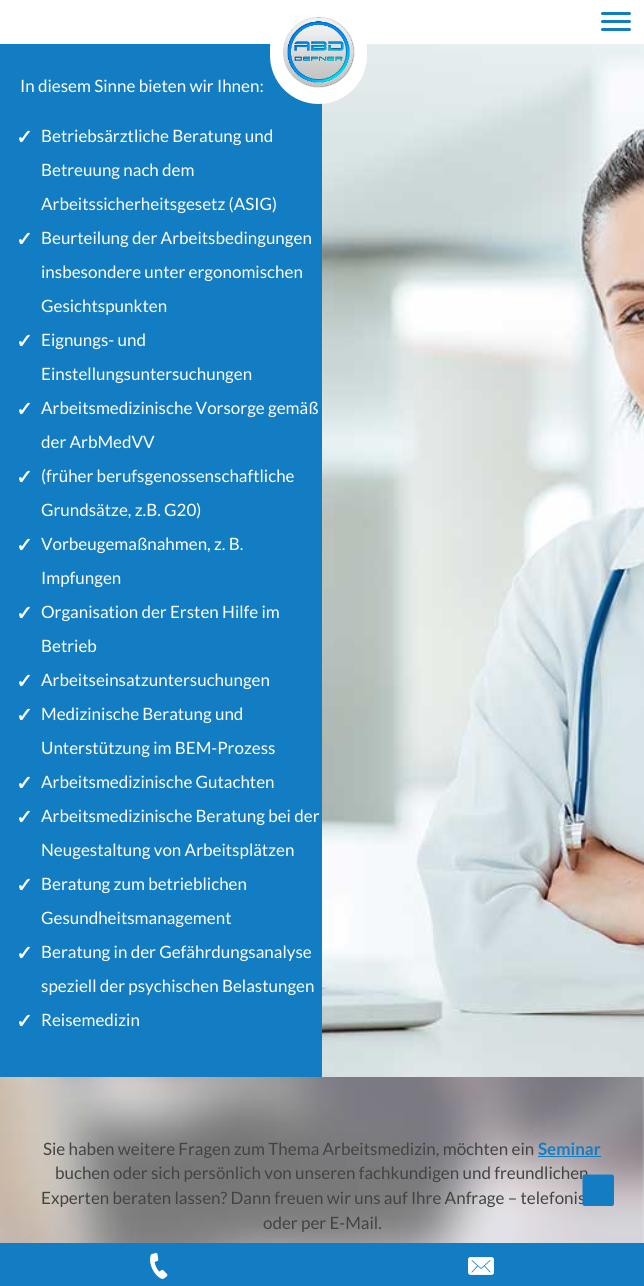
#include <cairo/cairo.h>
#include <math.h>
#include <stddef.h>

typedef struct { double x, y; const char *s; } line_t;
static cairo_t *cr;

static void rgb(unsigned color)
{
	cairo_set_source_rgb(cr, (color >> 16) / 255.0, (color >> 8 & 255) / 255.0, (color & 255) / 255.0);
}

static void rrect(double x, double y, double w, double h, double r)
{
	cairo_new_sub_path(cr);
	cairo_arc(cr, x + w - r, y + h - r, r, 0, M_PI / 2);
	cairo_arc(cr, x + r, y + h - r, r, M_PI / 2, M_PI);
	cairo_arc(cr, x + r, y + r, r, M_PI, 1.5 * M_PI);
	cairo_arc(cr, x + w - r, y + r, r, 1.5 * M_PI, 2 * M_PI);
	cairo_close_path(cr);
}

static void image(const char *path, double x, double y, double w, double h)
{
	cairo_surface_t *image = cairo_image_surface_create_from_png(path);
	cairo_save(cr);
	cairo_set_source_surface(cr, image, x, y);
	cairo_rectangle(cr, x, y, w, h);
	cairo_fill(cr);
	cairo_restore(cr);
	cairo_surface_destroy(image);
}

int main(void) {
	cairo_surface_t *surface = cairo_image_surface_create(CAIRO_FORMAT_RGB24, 644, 1286);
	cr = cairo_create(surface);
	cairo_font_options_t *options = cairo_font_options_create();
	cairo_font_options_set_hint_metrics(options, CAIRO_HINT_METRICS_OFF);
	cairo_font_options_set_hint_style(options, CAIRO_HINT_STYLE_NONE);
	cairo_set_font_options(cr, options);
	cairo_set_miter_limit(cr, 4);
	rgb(0xffffff);
	cairo_paint(cr);
	rgb(0x137dc3);
	cairo_rectangle(cr, 0, 44, 322, 1033);
	cairo_fill(cr);
	image("img/2.png", 322, 44, 322, 1033);
	rgb(0xffffff);
	rrect(270, 0, 97, 104, 48.5);
	cairo_fill(cr);
	image("img/1.png", 283, 17, 72, 71);
	rgb(0x137dc3);
	rrect(601, 20, 30, 3, 1.5);
	cairo_fill(cr);
	rrect(601, 12, 30, 3, 1.5);
	cairo_fill(cr);
	rrect(601, 28, 30, 3, 1.5);
	cairo_fill(cr);
	image("img/3.png", 0, 1077, 644, 166);
	cairo_rectangle(cr, 538, 1156, 63, 1);
	cairo_fill(cr);
	cairo_rectangle(cr, 0, 1243, 644, 43);
	cairo_fill(cr);
	image("img/4.png", 150, 1253, 18, 26);
	image("img/5.png", 468, 1257, 26, 18);
	cairo_select_font_face(cr, "Lato", CAIRO_FONT_SLANT_NORMAL, CAIRO_FONT_WEIGHT_NORMAL);
	cairo_set_font_size(cr, 17);
	rgb(0xffffff);
	cairo_move_to(cr, 20, 92);
	cairo_show_text(cr, "In diesem Sinne bieten wir Ihnen:");
	cairo_select_font_face(cr, "DejaVu Sans", CAIRO_FONT_SLANT_NORMAL, CAIRO_FONT_WEIGHT_BOLD);
	cairo_set_font_size(cr, 20);
	cairo_move_to(cr, 16, 144);
	cairo_show_text(cr, "✓");
	cairo_select_font_face(cr, "Lato", CAIRO_FONT_SLANT_NORMAL, CAIRO_FONT_WEIGHT_NORMAL);
	cairo_set_font_size(cr, 17);
	{
		static const line_t items[] = {
			{41, 142, "Betriebsärztliche Beratung und"},
			{41, 176, "Betreuung nach dem"},
			{41, 210, "Arbeitssicherheitsgesetz (ASIG)"},
		};
		for (size_t i = 0; i < sizeof items / sizeof *items; i++) {
			cairo_move_to(cr, items[i].x, items[i].y);
			cairo_show_text(cr, items[i].s);
		}
	}
	cairo_select_font_face(cr, "DejaVu Sans", CAIRO_FONT_SLANT_NORMAL, CAIRO_FONT_WEIGHT_BOLD);
	cairo_set_font_size(cr, 20);
	cairo_move_to(cr, 16, 246);
	cairo_show_text(cr, "✓");
	cairo_select_font_face(cr, "Lato", CAIRO_FONT_SLANT_NORMAL, CAIRO_FONT_WEIGHT_NORMAL);
	cairo_set_font_size(cr, 17);
	{
		static const line_t items[] = {
			{41, 244, "Beurteilung der Arbeitsbedingungen"},
			{41, 278, "insbesondere unter ergonomischen"},
			{41, 312, "Gesichtspunkten"},
		};
		for (size_t i = 0; i < sizeof items / sizeof *items; i++) {
			cairo_move_to(cr, items[i].x, items[i].y);
			cairo_show_text(cr, items[i].s);
		}
	}
	cairo_select_font_face(cr, "DejaVu Sans", CAIRO_FONT_SLANT_NORMAL, CAIRO_FONT_WEIGHT_BOLD);
	cairo_set_font_size(cr, 20);
	cairo_move_to(cr, 16, 348);
	cairo_show_text(cr, "✓");
	cairo_select_font_face(cr, "Lato", CAIRO_FONT_SLANT_NORMAL, CAIRO_FONT_WEIGHT_NORMAL);
	cairo_set_font_size(cr, 17);
	cairo_move_to(cr, 41, 346);
	cairo_show_text(cr, "Eignungs- und");
	cairo_move_to(cr, 41, 380);
	cairo_show_text(cr, "Einstellungsuntersuchungen");
	cairo_select_font_face(cr, "DejaVu Sans", CAIRO_FONT_SLANT_NORMAL, CAIRO_FONT_WEIGHT_BOLD);
	cairo_set_font_size(cr, 20);
	cairo_move_to(cr, 16, 416);
	cairo_show_text(cr, "✓");
	cairo_select_font_face(cr, "Lato", CAIRO_FONT_SLANT_NORMAL, CAIRO_FONT_WEIGHT_NORMAL);
	cairo_set_font_size(cr, 17);
	cairo_move_to(cr, 41, 414);
	cairo_show_text(cr, "Arbeitsmedizinische Vorsorge gemäß");
	cairo_move_to(cr, 41, 448);
	cairo_show_text(cr, "der ArbMedVV");
	cairo_select_font_face(cr, "DejaVu Sans", CAIRO_FONT_SLANT_NORMAL, CAIRO_FONT_WEIGHT_BOLD);
	cairo_set_font_size(cr, 20);
	cairo_move_to(cr, 16, 484);
	cairo_show_text(cr, "✓");
	cairo_select_font_face(cr, "Lato", CAIRO_FONT_SLANT_NORMAL, CAIRO_FONT_WEIGHT_NORMAL);
	cairo_set_font_size(cr, 17);
	cairo_move_to(cr, 41, 482);
	cairo_show_text(cr, "(früher berufsgenossenschaftliche");
	cairo_move_to(cr, 41, 516);
	cairo_show_text(cr, "Grundsätze, z.B. G20)");
	cairo_select_font_face(cr, "DejaVu Sans", CAIRO_FONT_SLANT_NORMAL, CAIRO_FONT_WEIGHT_BOLD);
	cairo_set_font_size(cr, 20);
	cairo_move_to(cr, 16, 552);
	cairo_show_text(cr, "✓");
	cairo_select_font_face(cr, "Lato", CAIRO_FONT_SLANT_NORMAL, CAIRO_FONT_WEIGHT_NORMAL);
	cairo_set_font_size(cr, 17);
	cairo_move_to(cr, 41, 550);
	cairo_show_text(cr, "Vorbeugemaßnahmen, z. B.");
	cairo_move_to(cr, 41, 584);
	cairo_show_text(cr, "Impfungen");
	cairo_select_font_face(cr, "DejaVu Sans", CAIRO_FONT_SLANT_NORMAL, CAIRO_FONT_WEIGHT_BOLD);
	cairo_set_font_size(cr, 20);
	cairo_move_to(cr, 16, 620);
	cairo_show_text(cr, "✓");
	cairo_select_font_face(cr, "Lato", CAIRO_FONT_SLANT_NORMAL, CAIRO_FONT_WEIGHT_NORMAL);
	cairo_set_font_size(cr, 17);
	cairo_move_to(cr, 41, 618);
	cairo_show_text(cr, "Organisation der Ersten Hilfe im");
	cairo_move_to(cr, 41, 652);
	cairo_show_text(cr, "Betrieb");
	cairo_select_font_face(cr, "DejaVu Sans", CAIRO_FONT_SLANT_NORMAL, CAIRO_FONT_WEIGHT_BOLD);
	cairo_set_font_size(cr, 20);
	cairo_move_to(cr, 16, 688);
	cairo_show_text(cr, "✓");
	cairo_select_font_face(cr, "Lato", CAIRO_FONT_SLANT_NORMAL, CAIRO_FONT_WEIGHT_NORMAL);
	cairo_set_font_size(cr, 17);
	cairo_move_to(cr, 41, 686);
	cairo_show_text(cr, "Arbeitseinsatzuntersuchungen");
	cairo_select_font_face(cr, "DejaVu Sans", CAIRO_FONT_SLANT_NORMAL, CAIRO_FONT_WEIGHT_BOLD);
	cairo_set_font_size(cr, 20);
	cairo_move_to(cr, 16, 722);
	cairo_show_text(cr, "✓");
	cairo_select_font_face(cr, "Lato", CAIRO_FONT_SLANT_NORMAL, CAIRO_FONT_WEIGHT_NORMAL);
	cairo_set_font_size(cr, 17);
	cairo_move_to(cr, 41, 720);
	cairo_show_text(cr, "Medizinische Beratung und");
	cairo_move_to(cr, 41, 754);
	cairo_show_text(cr, "Unterstützung im BEM-Prozess");
	cairo_select_font_face(cr, "DejaVu Sans", CAIRO_FONT_SLANT_NORMAL, CAIRO_FONT_WEIGHT_BOLD);
	cairo_set_font_size(cr, 20);
	cairo_move_to(cr, 16, 790);
	cairo_show_text(cr, "✓");
	cairo_select_font_face(cr, "Lato", CAIRO_FONT_SLANT_NORMAL, CAIRO_FONT_WEIGHT_NORMAL);
	cairo_set_font_size(cr, 17);
	cairo_move_to(cr, 41, 788);
	cairo_show_text(cr, "Arbeitsmedizinische Gutachten");
	cairo_select_font_face(cr, "DejaVu Sans", CAIRO_FONT_SLANT_NORMAL, CAIRO_FONT_WEIGHT_BOLD);
	cairo_set_font_size(cr, 20);
	cairo_move_to(cr, 16, 824);
	cairo_show_text(cr, "✓");
	cairo_select_font_face(cr, "Lato", CAIRO_FONT_SLANT_NORMAL, CAIRO_FONT_WEIGHT_NORMAL);
	cairo_set_font_size(cr, 17);
	cairo_move_to(cr, 41, 822);
	cairo_show_text(cr, "Arbeitsmedizinische Beratung bei der");
	cairo_move_to(cr, 41, 856);
	cairo_show_text(cr, "Neugestaltung von Arbeitsplätzen");
	cairo_select_font_face(cr, "DejaVu Sans", CAIRO_FONT_SLANT_NORMAL, CAIRO_FONT_WEIGHT_BOLD);
	cairo_set_font_size(cr, 20);
	cairo_move_to(cr, 16, 892);
	cairo_show_text(cr, "✓");
	cairo_select_font_face(cr, "Lato", CAIRO_FONT_SLANT_NORMAL, CAIRO_FONT_WEIGHT_NORMAL);
	cairo_set_font_size(cr, 17);
	cairo_move_to(cr, 41, 890);
	cairo_show_text(cr, "Beratung zum betrieblichen");
	cairo_move_to(cr, 41, 924);
	cairo_show_text(cr, "Gesundheitsmanagement");
	cairo_select_font_face(cr, "DejaVu Sans", CAIRO_FONT_SLANT_NORMAL, CAIRO_FONT_WEIGHT_BOLD);
	cairo_set_font_size(cr, 20);
	cairo_move_to(cr, 16, 960);
	cairo_show_text(cr, "✓");
	cairo_select_font_face(cr, "Lato", CAIRO_FONT_SLANT_NORMAL, CAIRO_FONT_WEIGHT_NORMAL);
	cairo_set_font_size(cr, 17);
	cairo_move_to(cr, 41, 958);
	cairo_show_text(cr, "Beratung in der Gefährdungsanalyse");
	cairo_move_to(cr, 41, 992);
	cairo_show_text(cr, "speziell der psychischen Belastungen");
	cairo_select_font_face(cr, "DejaVu Sans", CAIRO_FONT_SLANT_NORMAL, CAIRO_FONT_WEIGHT_BOLD);
	cairo_set_font_size(cr, 20);
	cairo_move_to(cr, 16, 1028);
	cairo_show_text(cr, "✓");
	cairo_select_font_face(cr, "Lato", CAIRO_FONT_SLANT_NORMAL, CAIRO_FONT_WEIGHT_NORMAL);
	cairo_set_font_size(cr, 17);
	cairo_move_to(cr, 41, 1026);
	cairo_show_text(cr, "Reisemedizin");
	rgb(0x434343);
	cairo_move_to(cr, 43, 1155);
	cairo_show_text(cr, "Sie haben weitere Fragen zum Thema Arbeitsmedizin, möchten ein");
	cairo_select_font_face(cr, "Lato", CAIRO_FONT_SLANT_NORMAL, CAIRO_FONT_WEIGHT_BOLD);
	rgb(0x137dc3);
	cairo_move_to(cr, 538, 1155);
	cairo_show_text(cr, "Seminar");
	cairo_select_font_face(cr, "Lato", CAIRO_FONT_SLANT_NORMAL, CAIRO_FONT_WEIGHT_NORMAL);
	rgb(0x434343);
	{
		static const line_t items[] = {
			{55, 1179, "buchen oder sich persönlich von unseren fachkundigen und freundlichen"},
			{41, 1204, "Experten beraten lassen? Dann freuen wir uns auf Ihre Anfrage – telefonis"},
			{263, 1229, "oder per E-Mail."},
		};
		for (size_t i = 0; i < sizeof items / sizeof *items; i++) {
			cairo_move_to(cr, items[i].x, items[i].y);
			cairo_show_text(cr, items[i].s);
		}
	}
	rgb(0x137dc3);
	cairo_new_path(cr);
	cairo_move_to(cr, 612, 1206);
	cairo_line_to(cr, 584.5, 1206);
	cairo_curve_to(cr, 583.5, 1206, 582.5, 1205, 582.5, 1204);
	cairo_line_to(cr, 582.5, 1176.5);
	cairo_curve_to(cr, 582.5, 1175.5, 583.5, 1174.5, 584.5, 1174.5);
	cairo_line_to(cr, 612, 1174.5);
	cairo_curve_to(cr, 613, 1174.5, 614, 1175.5, 614, 1176.5);
	cairo_line_to(cr, 614, 1204);
	cairo_curve_to(cr, 614, 1205, 613, 1206, 612, 1206);
	cairo_close_path(cr);
	cairo_fill(cr);
	cairo_surface_write_to_png(surface, "page.png");
	cairo_font_options_destroy(options);
	cairo_destroy(cr);
	cairo_surface_destroy(surface);
	return 0;
}
